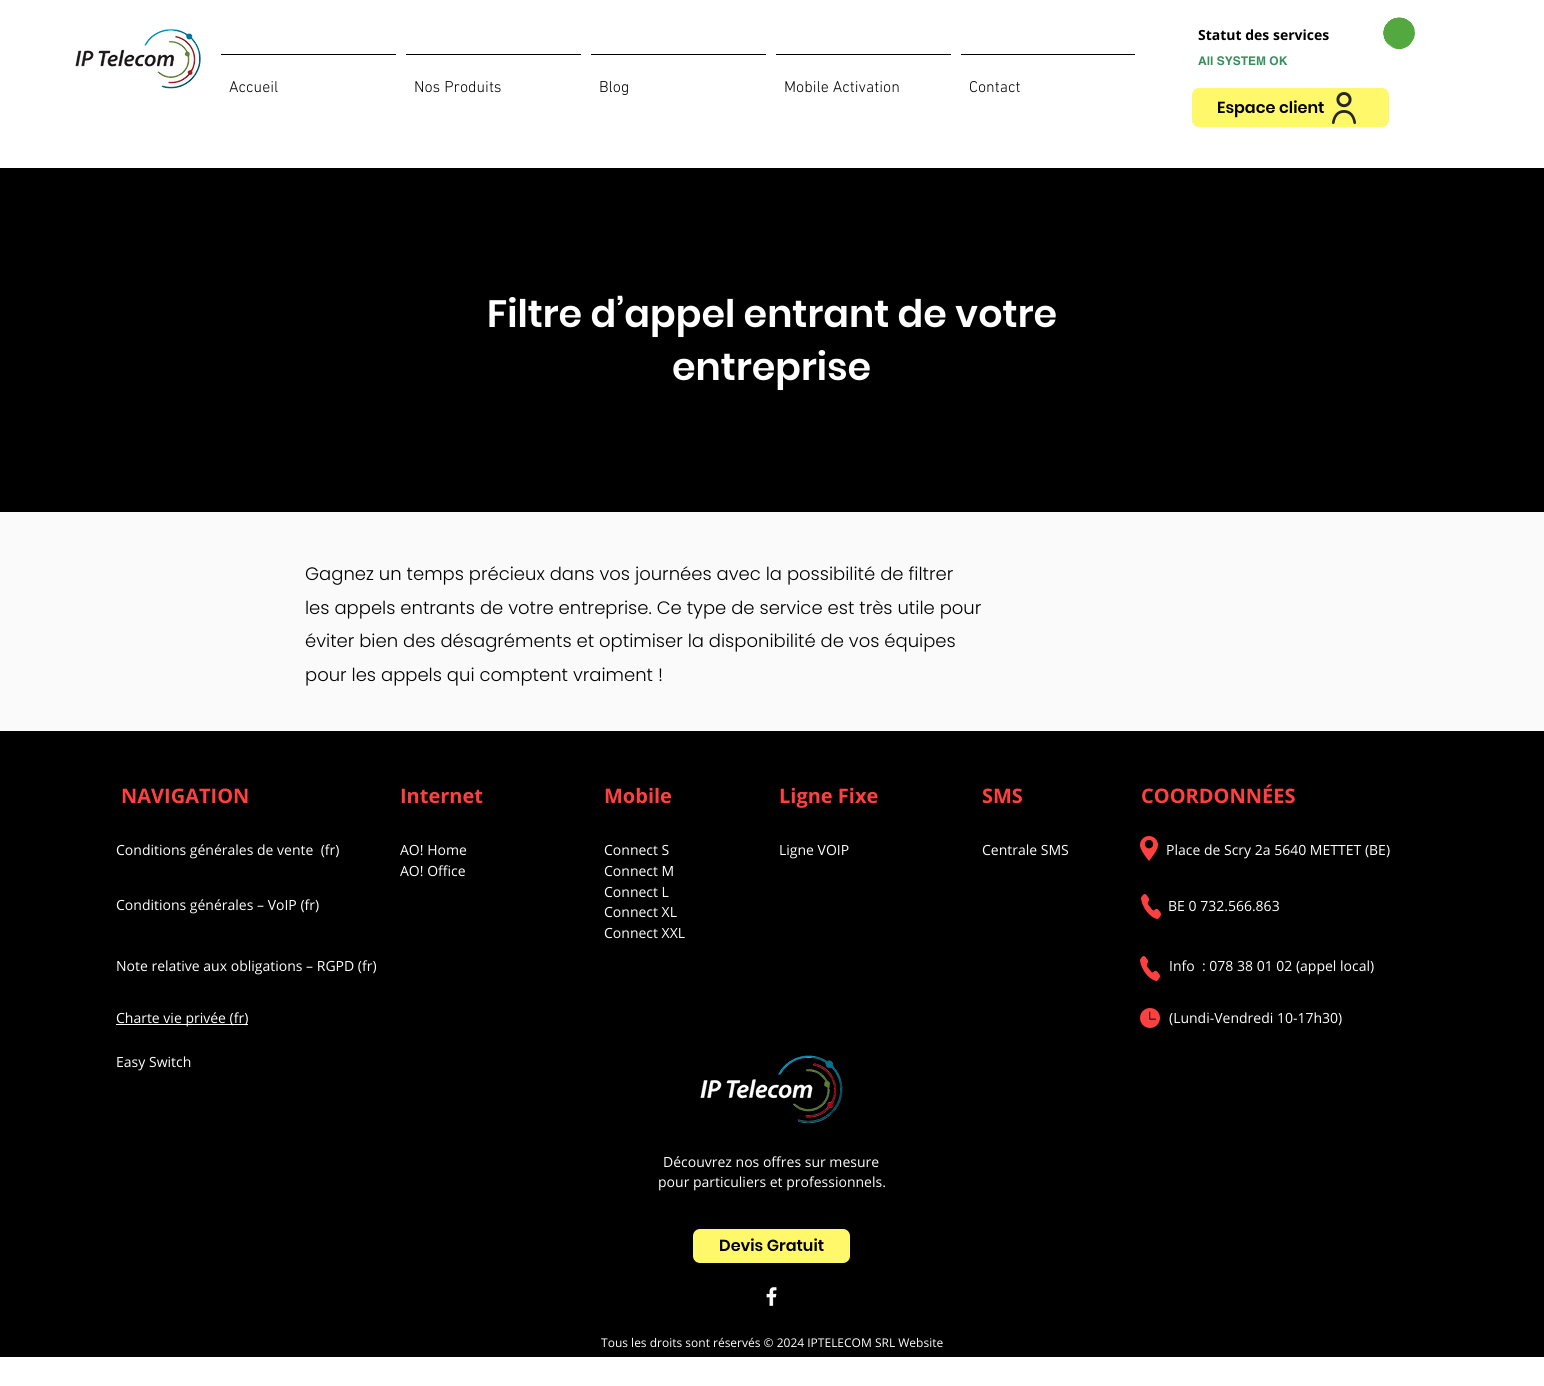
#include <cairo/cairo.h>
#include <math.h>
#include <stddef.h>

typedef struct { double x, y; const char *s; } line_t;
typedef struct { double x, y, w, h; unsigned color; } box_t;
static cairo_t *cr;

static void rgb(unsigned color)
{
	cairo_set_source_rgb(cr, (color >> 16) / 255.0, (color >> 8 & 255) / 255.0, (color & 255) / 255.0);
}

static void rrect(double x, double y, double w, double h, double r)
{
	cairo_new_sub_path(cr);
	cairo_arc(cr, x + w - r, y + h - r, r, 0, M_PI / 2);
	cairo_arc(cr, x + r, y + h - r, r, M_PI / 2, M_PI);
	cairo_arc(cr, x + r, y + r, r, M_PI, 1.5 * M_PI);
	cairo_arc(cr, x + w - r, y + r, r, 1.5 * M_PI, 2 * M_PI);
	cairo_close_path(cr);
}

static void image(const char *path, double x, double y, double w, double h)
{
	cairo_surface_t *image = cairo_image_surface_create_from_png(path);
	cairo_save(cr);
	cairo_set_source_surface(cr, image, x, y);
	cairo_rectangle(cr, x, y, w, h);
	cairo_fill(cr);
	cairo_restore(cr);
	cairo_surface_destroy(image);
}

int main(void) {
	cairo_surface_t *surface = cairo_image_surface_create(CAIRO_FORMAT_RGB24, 1544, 1386);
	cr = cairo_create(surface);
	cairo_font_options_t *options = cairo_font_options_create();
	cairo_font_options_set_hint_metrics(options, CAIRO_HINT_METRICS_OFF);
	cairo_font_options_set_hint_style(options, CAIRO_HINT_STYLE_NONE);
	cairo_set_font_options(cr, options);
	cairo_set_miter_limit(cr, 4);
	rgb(0xffffff);
	cairo_paint(cr);
	image("img/1.png", 75, 29, 126, 60);
	image("img/2.png", 1383, 17, 32, 32);
	{
		static const box_t items[] = {
			{221, 54, 175, 1, 0x000000},
			{406, 54, 175, 1, 0x000000},
			{591, 54, 175, 1, 0x000000},
			{776, 54, 175, 1, 0x000000},
			{961, 54, 174, 1, 0x000000},
		};
		for (size_t i = 0; i < sizeof items / sizeof *items; i++) {
			rgb(items[i].color);
			cairo_rectangle(cr, items[i].x, items[i].y, items[i].w, items[i].h);
			cairo_fill(cr);
		}
	}
	rgb(0xfff86b);
	rrect(1192, 88, 197, 39, 7);
	cairo_fill(cr);
	image("img/3.png", 1331, 92, 26, 32);
	{
		static const box_t items[] = {
			{0, 168, 1544, 344, 0x000000},
			{0, 512, 1544, 219, 0xfafafa},
			{0, 731, 1544, 626, 0x000000},
		};
		for (size_t i = 0; i < sizeof items / sizeof *items; i++) {
			rgb(items[i].color);
			cairo_rectangle(cr, items[i].x, items[i].y, items[i].w, items[i].h);
			cairo_fill(cr);
		}
	}
	image("img/4.png", 1140, 836, 18, 25);
	image("img/5.png", 1141, 894, 20, 25);
	image("img/5.png", 1140, 956, 20, 25);
	rgb(0xffffff);
	cairo_rectangle(cr, 116, 1024, 132, 1);
	cairo_fill(cr);
	image("img/6.png", 1140, 1008, 20, 20);
	image("img/7.png", 700, 1055, 143, 69);
	rgb(0xfff86b);
	rrect(693, 1229, 157, 34, 7);
	cairo_fill(cr);
	image("img/8.png", 766, 1287, 11, 19);
	cairo_select_font_face(cr, "Open Sans", CAIRO_FONT_SLANT_NORMAL, CAIRO_FONT_WEIGHT_BOLD);
	cairo_set_font_size(cr, 14);
	rgb(0x000000);
	cairo_move_to(cr, 1198, 40);
	cairo_show_text(cr, "Statut des services");
	cairo_select_font_face(cr, "helvetica", CAIRO_FONT_SLANT_NORMAL, CAIRO_FONT_WEIGHT_BOLD);
	cairo_set_font_size(cr, 12);
	rgb(0x378f5e);
	cairo_move_to(cr, 1198, 65);
	cairo_show_text(cr, "All SYSTEM OK");
	cairo_select_font_face(cr, "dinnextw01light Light", CAIRO_FONT_SLANT_NORMAL, CAIRO_FONT_WEIGHT_NORMAL);
	cairo_set_font_size(cr, 16);
	rgb(0x000000);
	{
		static const line_t items[] = {
			{229, 92, "Accueil"},
			{414, 92, "Nos Produits"},
			{599, 92, "Blog"},
			{784, 92, "Mobile Activation"},
			{969, 92, "Contact"},
		};
		for (size_t i = 0; i < sizeof items / sizeof *items; i++) {
			cairo_move_to(cr, items[i].x, items[i].y);
			cairo_show_text(cr, items[i].s);
		}
	}
	cairo_select_font_face(cr, "Poppins SemiBold", CAIRO_FONT_SLANT_NORMAL, CAIRO_FONT_WEIGHT_NORMAL);
	cairo_move_to(cr, 1217, 113);
	cairo_show_text(cr, "Espace client");
	cairo_set_font_size(cr, 38);
	rgb(0xffffff);
	cairo_move_to(cr, 487, 327);
	cairo_show_text(cr, "Filtre d’appel entrant de votre");
	cairo_move_to(cr, 672, 380);
	cairo_show_text(cr, "entreprise");
	cairo_select_font_face(cr, "Poppins Light", CAIRO_FONT_SLANT_NORMAL, CAIRO_FONT_WEIGHT_NORMAL);
	cairo_set_font_size(cr, 18);
	rgb(0x000000);
	{
		static const line_t items[] = {
			{305, 580, "Gagnez un temps précieux dans vos journées avec la possibilité de filtrer"},
			{305, 614, "les appels entrants de votre entreprise. Ce type de service est très utile pour"},
			{305, 647, "éviter bien des désagréments et optimiser la disponibilité de vos équipes"},
			{305, 681, "pour les appels qui comptent vraiment !"},
		};
		for (size_t i = 0; i < sizeof items / sizeof *items; i++) {
			cairo_move_to(cr, items[i].x, items[i].y);
			cairo_show_text(cr, items[i].s);
		}
	}
	cairo_select_font_face(cr, "Open Sans", CAIRO_FONT_SLANT_NORMAL, CAIRO_FONT_WEIGHT_BOLD);
	cairo_set_font_size(cr, 20);
	rgb(0xff4040);
	{
		static const line_t items[] = {
			{121, 803, "NAVIGATION"},
			{400, 803, "Internet"},
			{604, 803, "Mobile"},
			{779, 803, "Ligne Fixe"},
			{982, 803, "SMS"},
			{1141, 803, "COORDONNÉES"},
		};
		for (size_t i = 0; i < sizeof items / sizeof *items; i++) {
			cairo_move_to(cr, items[i].x, items[i].y);
			cairo_show_text(cr, items[i].s);
		}
	}
	cairo_select_font_face(cr, "Open Sans", CAIRO_FONT_SLANT_NORMAL, CAIRO_FONT_WEIGHT_NORMAL);
	cairo_set_font_size(cr, 14);
	rgb(0xffffff);
	{
		static const line_t items[] = {
			{116, 855, "Conditions générales de vente  (fr)"},
			{400, 855, "AO! Home"},
			{400, 876, "AO! Office"},
			{604, 855, "Connect S"},
			{604, 876, "Connect M"},
			{604, 897, "Connect L"},
			{604, 917, "Connect XL"},
			{604, 938, "Connect XXL"},
			{779, 855, "Ligne VOIP"},
			{982, 855, "Centrale SMS"},
			{1166, 855, "Place de Scry 2a 5640 METTET (BE)"},
			{116, 910, "Conditions générales – VoIP (fr)"},
			{1168, 911, "BE 0 732.566.863"},
			{116, 971, "Note relative aux obligations – RGPD (fr)"},
			{1169, 971, "Info  : 078 38 01 02 (appel local)"},
			{116, 1023, "Charte vie privée (fr)"},
			{1169, 1023, "(Lundi-Vendredi 10-17h30)"},
			{116, 1067, "Easy Switch"},
			{663, 1167, "Découvrez nos offres sur mesure"},
			{658, 1187, "pour particuliers et professionnels."},
		};
		for (size_t i = 0; i < sizeof items / sizeof *items; i++) {
			cairo_move_to(cr, items[i].x, items[i].y);
			cairo_show_text(cr, items[i].s);
		}
	}
	cairo_select_font_face(cr, "Poppins SemiBold", CAIRO_FONT_SLANT_NORMAL, CAIRO_FONT_WEIGHT_NORMAL);
	cairo_set_font_size(cr, 16);
	rgb(0x000000);
	cairo_move_to(cr, 719, 1251);
	cairo_show_text(cr, "Devis Gratuit");
	cairo_select_font_face(cr, "Open Sans", CAIRO_FONT_SLANT_NORMAL, CAIRO_FONT_WEIGHT_NORMAL);
	cairo_set_font_size(cr, 12);
	rgb(0xffffff);
	cairo_move_to(cr, 601, 1347);
	cairo_show_text(cr, "Tous les droits sont réservés © 2024 IPTELECOM SRL Website");
	cairo_surface_write_to_png(surface, "page.png");
	cairo_font_options_destroy(options);
	cairo_destroy(cr);
	cairo_surface_destroy(surface);
	return 0;
}
